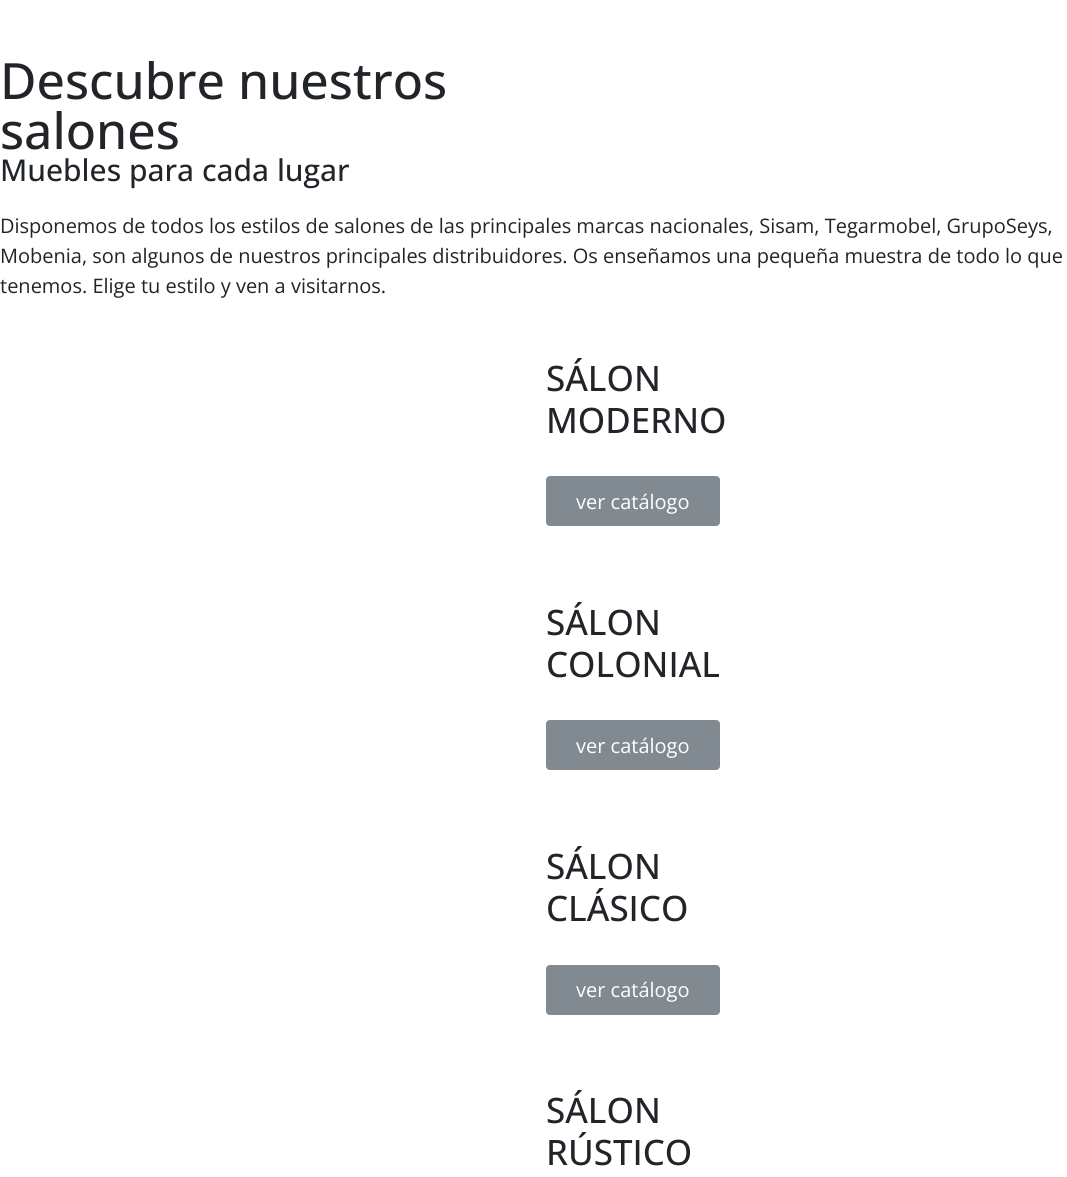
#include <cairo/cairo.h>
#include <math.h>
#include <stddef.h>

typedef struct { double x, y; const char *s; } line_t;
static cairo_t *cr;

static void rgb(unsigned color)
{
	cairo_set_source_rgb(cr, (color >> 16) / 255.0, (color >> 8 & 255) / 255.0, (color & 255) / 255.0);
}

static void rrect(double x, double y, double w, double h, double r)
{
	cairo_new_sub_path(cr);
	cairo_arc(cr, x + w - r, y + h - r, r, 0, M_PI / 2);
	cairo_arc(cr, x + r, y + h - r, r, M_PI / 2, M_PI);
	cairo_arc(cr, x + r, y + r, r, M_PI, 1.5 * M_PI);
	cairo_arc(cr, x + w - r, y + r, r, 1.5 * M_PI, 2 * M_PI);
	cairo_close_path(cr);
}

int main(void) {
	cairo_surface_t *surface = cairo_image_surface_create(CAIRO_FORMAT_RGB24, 1067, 1177);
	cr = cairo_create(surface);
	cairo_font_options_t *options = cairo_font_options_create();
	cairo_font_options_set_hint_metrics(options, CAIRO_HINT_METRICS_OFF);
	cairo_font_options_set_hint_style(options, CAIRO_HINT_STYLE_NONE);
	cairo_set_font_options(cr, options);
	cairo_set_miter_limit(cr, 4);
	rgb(0xffffff);
	cairo_paint(cr);
	rgb(0x818a91);
	rrect(546, 476, 174, 50, 4);
	cairo_fill(cr);
	rrect(546, 720, 174, 50, 4);
	cairo_fill(cr);
	rrect(546, 965, 174, 50, 4);
	cairo_fill(cr);
	cairo_select_font_face(cr, "Open Sans Medium", CAIRO_FONT_SLANT_NORMAL, CAIRO_FONT_WEIGHT_NORMAL);
	cairo_set_font_size(cr, 50);
	rgb(0x212529);
	cairo_move_to(cr, 0, 99);
	cairo_show_text(cr, "Descubre nuestros");
	cairo_move_to(cr, 0, 149);
	cairo_show_text(cr, "salones");
	cairo_set_font_size(cr, 30);
	cairo_move_to(cr, 0, 181);
	cairo_show_text(cr, "Muebles para cada lugar");
	cairo_select_font_face(cr, "Open Sans", CAIRO_FONT_SLANT_NORMAL, CAIRO_FONT_WEIGHT_NORMAL);
	cairo_set_font_size(cr, 20);
	{
		static const line_t items[] = {
			{0, 233, "Disponemos de todos los estilos de salones de las principales marcas nacionales, Sisam, Tegarmobel, GrupoSeys,"},
			{0, 263, "Mobenia, son algunos de nuestros principales distribuidores. Os enseñamos una pequeña muestra de todo lo que"},
			{0, 293, "tenemos. Elige tu estilo y ven a visitarnos."},
		};
		for (size_t i = 0; i < sizeof items / sizeof *items; i++) {
			cairo_move_to(cr, items[i].x, items[i].y);
			cairo_show_text(cr, items[i].s);
		}
	}
	cairo_select_font_face(cr, "Open Sans Medium", CAIRO_FONT_SLANT_NORMAL, CAIRO_FONT_WEIGHT_NORMAL);
	cairo_set_font_size(cr, 35);
	cairo_move_to(cr, 546, 391);
	cairo_show_text(cr, "SÁLON");
	cairo_move_to(cr, 546, 433);
	cairo_show_text(cr, "MODERNO");
	cairo_select_font_face(cr, "Open Sans", CAIRO_FONT_SLANT_NORMAL, CAIRO_FONT_WEIGHT_NORMAL);
	cairo_set_font_size(cr, 20);
	rgb(0xffffff);
	cairo_move_to(cr, 576, 509);
	cairo_show_text(cr, "ver catálogo");
	cairo_select_font_face(cr, "Open Sans Medium", CAIRO_FONT_SLANT_NORMAL, CAIRO_FONT_WEIGHT_NORMAL);
	cairo_set_font_size(cr, 35);
	rgb(0x212529);
	cairo_move_to(cr, 546, 635);
	cairo_show_text(cr, "SÁLON");
	cairo_move_to(cr, 546, 677);
	cairo_show_text(cr, "COLONIAL");
	cairo_select_font_face(cr, "Open Sans", CAIRO_FONT_SLANT_NORMAL, CAIRO_FONT_WEIGHT_NORMAL);
	cairo_set_font_size(cr, 20);
	rgb(0xffffff);
	cairo_move_to(cr, 576, 753);
	cairo_show_text(cr, "ver catálogo");
	cairo_select_font_face(cr, "Open Sans Medium", CAIRO_FONT_SLANT_NORMAL, CAIRO_FONT_WEIGHT_NORMAL);
	cairo_set_font_size(cr, 35);
	rgb(0x212529);
	cairo_move_to(cr, 546, 879);
	cairo_show_text(cr, "SÁLON");
	cairo_move_to(cr, 546, 921);
	cairo_show_text(cr, "CLÁSICO");
	cairo_select_font_face(cr, "Open Sans", CAIRO_FONT_SLANT_NORMAL, CAIRO_FONT_WEIGHT_NORMAL);
	cairo_set_font_size(cr, 20);
	rgb(0xffffff);
	cairo_move_to(cr, 576, 997);
	cairo_show_text(cr, "ver catálogo");
	cairo_select_font_face(cr, "Open Sans Medium", CAIRO_FONT_SLANT_NORMAL, CAIRO_FONT_WEIGHT_NORMAL);
	cairo_set_font_size(cr, 35);
	rgb(0x212529);
	cairo_move_to(cr, 546, 1123);
	cairo_show_text(cr, "SÁLON");
	cairo_move_to(cr, 546, 1165);
	cairo_show_text(cr, "RÚSTICO");
	cairo_surface_write_to_png(surface, "page.png");
	cairo_font_options_destroy(options);
	cairo_destroy(cr);
	cairo_surface_destroy(surface);
	return 0;
}
